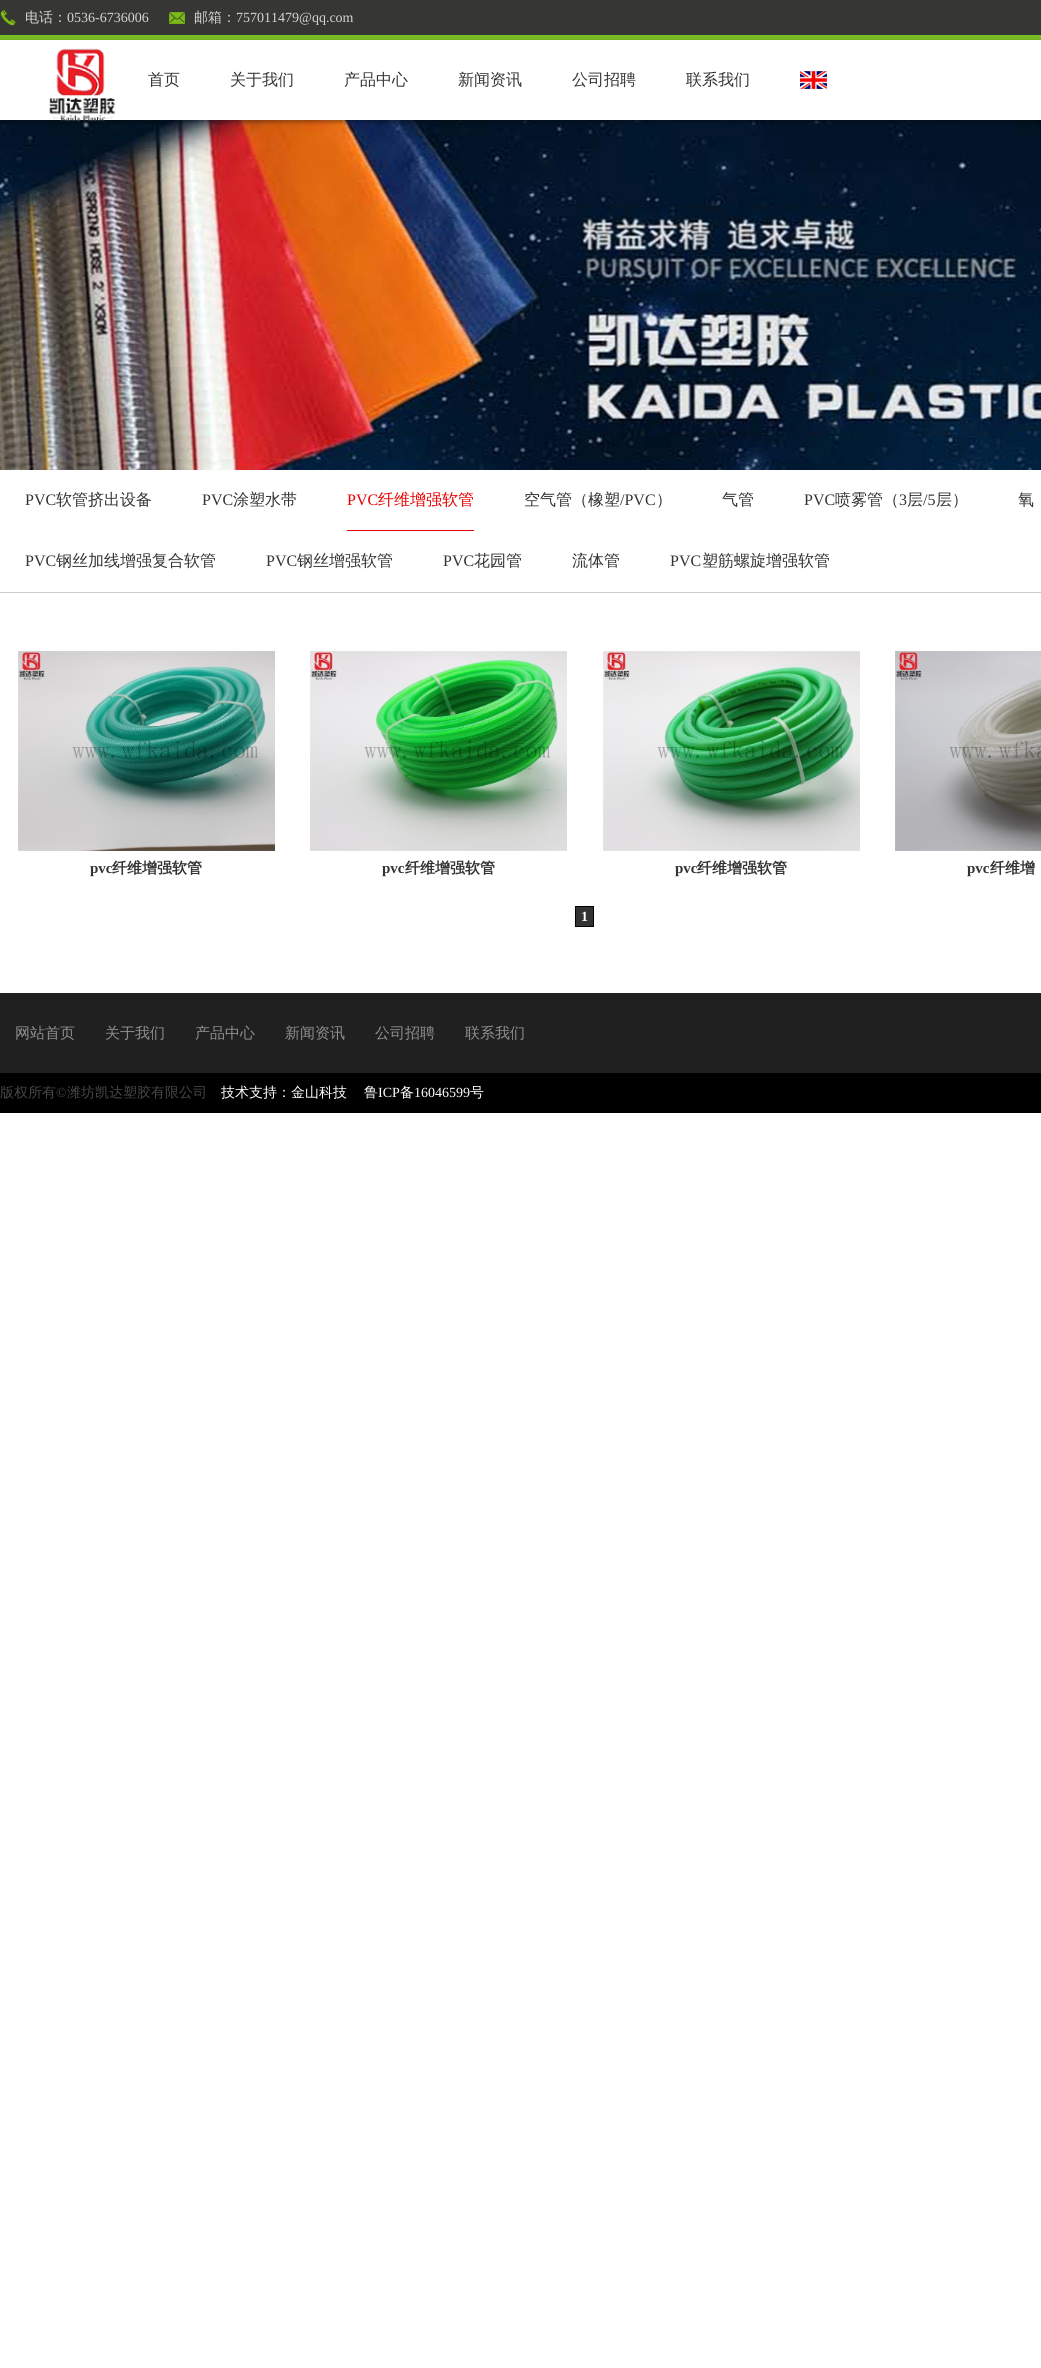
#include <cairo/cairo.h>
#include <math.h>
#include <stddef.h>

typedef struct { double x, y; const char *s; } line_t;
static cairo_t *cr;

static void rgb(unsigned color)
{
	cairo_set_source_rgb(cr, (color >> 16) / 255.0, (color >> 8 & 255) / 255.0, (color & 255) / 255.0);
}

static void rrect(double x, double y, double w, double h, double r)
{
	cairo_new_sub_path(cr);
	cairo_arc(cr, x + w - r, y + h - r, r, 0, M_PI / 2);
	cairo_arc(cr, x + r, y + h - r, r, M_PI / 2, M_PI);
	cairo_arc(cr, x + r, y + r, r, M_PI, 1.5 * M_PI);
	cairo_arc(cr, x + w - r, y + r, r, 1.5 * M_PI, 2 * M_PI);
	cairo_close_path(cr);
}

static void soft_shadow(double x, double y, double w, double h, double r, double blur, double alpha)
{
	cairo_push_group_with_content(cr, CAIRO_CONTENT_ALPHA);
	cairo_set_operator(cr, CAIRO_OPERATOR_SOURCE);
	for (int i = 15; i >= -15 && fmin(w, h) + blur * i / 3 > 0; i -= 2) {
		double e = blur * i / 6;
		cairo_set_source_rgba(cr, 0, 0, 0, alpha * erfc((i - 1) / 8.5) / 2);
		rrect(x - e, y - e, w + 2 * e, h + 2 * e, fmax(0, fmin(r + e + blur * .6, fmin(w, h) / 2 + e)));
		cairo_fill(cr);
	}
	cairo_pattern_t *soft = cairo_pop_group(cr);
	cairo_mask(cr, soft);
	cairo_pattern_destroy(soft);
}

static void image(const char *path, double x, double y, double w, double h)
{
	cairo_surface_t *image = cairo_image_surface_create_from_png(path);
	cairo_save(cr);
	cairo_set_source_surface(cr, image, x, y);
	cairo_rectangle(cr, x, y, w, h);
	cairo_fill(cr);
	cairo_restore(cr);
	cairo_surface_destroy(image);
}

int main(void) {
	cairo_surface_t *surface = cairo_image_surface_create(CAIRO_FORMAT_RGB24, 1041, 2368);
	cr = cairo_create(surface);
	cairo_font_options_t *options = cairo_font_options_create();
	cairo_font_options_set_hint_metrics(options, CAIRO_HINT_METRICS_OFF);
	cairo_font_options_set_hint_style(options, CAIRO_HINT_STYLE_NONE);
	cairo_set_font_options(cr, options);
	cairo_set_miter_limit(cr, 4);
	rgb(0xffffff);
	cairo_paint(cr);
	rgb(0x363634);
	cairo_rectangle(cr, 0, 0, 1041, 35);
	cairo_fill(cr);
	rgb(0x7abd22);
	cairo_rectangle(cr, 0, 35, 1041, 5);
	cairo_fill(cr);
	image("img/1.png", 0, 10, 16, 16);
	image("img/2.png", 169, 12, 16, 12);
	image("img/5.png", 0, 120, 1041, 350);
	cairo_save(cr);
	cairo_set_fill_rule(cr, CAIRO_FILL_RULE_EVEN_ODD);
	cairo_new_path(cr);
	cairo_move_to(cr, 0, 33);
	cairo_line_to(cr, 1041, 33);
	cairo_line_to(cr, 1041, 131);
	cairo_line_to(cr, 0, 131);
	cairo_close_path(cr);
	cairo_move_to(cr, 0, 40);
	cairo_line_to(cr, 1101, 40);
	cairo_line_to(cr, 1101, 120);
	cairo_line_to(cr, 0, 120);
	cairo_close_path(cr);
	cairo_clip(cr);
	rgb(0x000000);
	soft_shadow(0, 42, 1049, 80, 0, 2.5, 0.34);
	cairo_restore(cr);
	image("img/3.png", 49, 48, 67, 74);
	image("img/4.png", 800, 71, 27, 18);
	rgb(0xcccccc);
	cairo_rectangle(cr, 0, 592, 1041, 1);
	cairo_fill(cr);
	rgb(0xe90000);
	cairo_rectangle(cr, 347, 530, 127, 1);
	cairo_fill(cr);
	image("img/6.png", 18, 651, 257, 200);
	image("img/7.png", 310, 651, 257, 200);
	image("img/8.png", 603, 651, 257, 200);
	image("img/9.png", 895, 651, 146, 200);
	rgb(0x333333);
	cairo_rectangle(cr, 575.5, 906.5, 18, 20);
	cairo_fill_preserve(cr);
	rgb(0x000000);
	cairo_set_line_width(cr, 1);
	cairo_stroke(cr);
	rgb(0x202020);
	cairo_rectangle(cr, 0, 993, 1041, 80);
	cairo_fill(cr);
	rgb(0x000000);
	cairo_rectangle(cr, 0, 1073, 1041, 40);
	cairo_fill(cr);
	cairo_select_font_face(cr, "WenQuanYi Zen Hei Medium", CAIRO_FONT_SLANT_NORMAL, CAIRO_FONT_WEIGHT_NORMAL);
	cairo_set_font_size(cr, 14);
	rgb(0xd5d5d3);
	cairo_move_to(cr, 25, 22);
	cairo_show_text(cr, "电话：");
	cairo_select_font_face(cr, "Liberation Serif", CAIRO_FONT_SLANT_NORMAL, CAIRO_FONT_WEIGHT_NORMAL);
	cairo_move_to(cr, 67, 22);
	cairo_show_text(cr, "0536-6736006");
	cairo_select_font_face(cr, "WenQuanYi Zen Hei Medium", CAIRO_FONT_SLANT_NORMAL, CAIRO_FONT_WEIGHT_NORMAL);
	cairo_move_to(cr, 194, 22);
	cairo_show_text(cr, "邮箱：");
	cairo_select_font_face(cr, "Liberation Serif", CAIRO_FONT_SLANT_NORMAL, CAIRO_FONT_WEIGHT_NORMAL);
	cairo_move_to(cr, 236, 22);
	cairo_show_text(cr, "757011479@qq.com");
	cairo_select_font_face(cr, "WenQuanYi Zen Hei Medium", CAIRO_FONT_SLANT_NORMAL, CAIRO_FONT_WEIGHT_NORMAL);
	cairo_set_font_size(cr, 16);
	rgb(0x333333);
	{
		static const line_t items[] = {
			{148, 85, "首页"},
			{230, 85, "关于我们"},
			{344, 85, "产品中心"},
			{458, 85, "新闻资讯"},
			{572, 85, "公司招聘"},
			{686, 85, "联系我们"},
		};
		for (size_t i = 0; i < sizeof items / sizeof *items; i++) {
			cairo_move_to(cr, items[i].x, items[i].y);
			cairo_show_text(cr, items[i].s);
		}
	}
	cairo_select_font_face(cr, "Liberation Serif", CAIRO_FONT_SLANT_NORMAL, CAIRO_FONT_WEIGHT_NORMAL);
	cairo_move_to(cr, 25, 505);
	cairo_show_text(cr, "PVC");
	cairo_select_font_face(cr, "WenQuanYi Zen Hei Medium", CAIRO_FONT_SLANT_NORMAL, CAIRO_FONT_WEIGHT_NORMAL);
	cairo_move_to(cr, 56, 505);
	cairo_show_text(cr, "软管挤出设备");
	cairo_select_font_face(cr, "Liberation Serif", CAIRO_FONT_SLANT_NORMAL, CAIRO_FONT_WEIGHT_NORMAL);
	cairo_move_to(cr, 202, 505);
	cairo_show_text(cr, "PVC");
	cairo_select_font_face(cr, "WenQuanYi Zen Hei Medium", CAIRO_FONT_SLANT_NORMAL, CAIRO_FONT_WEIGHT_NORMAL);
	cairo_move_to(cr, 233, 505);
	cairo_show_text(cr, "涂塑水带");
	cairo_select_font_face(cr, "Liberation Serif", CAIRO_FONT_SLANT_NORMAL, CAIRO_FONT_WEIGHT_NORMAL);
	rgb(0xe90000);
	cairo_move_to(cr, 347, 505);
	cairo_show_text(cr, "PVC");
	cairo_select_font_face(cr, "WenQuanYi Zen Hei Medium", CAIRO_FONT_SLANT_NORMAL, CAIRO_FONT_WEIGHT_NORMAL);
	cairo_move_to(cr, 378, 505);
	cairo_show_text(cr, "纤维增强软管");
	rgb(0x333333);
	cairo_move_to(cr, 524, 505);
	cairo_show_text(cr, "空气管（橡塑");
	cairo_select_font_face(cr, "Liberation Serif", CAIRO_FONT_SLANT_NORMAL, CAIRO_FONT_WEIGHT_NORMAL);
	cairo_move_to(cr, 620, 505);
	cairo_show_text(cr, "/PVC");
	cairo_select_font_face(cr, "WenQuanYi Zen Hei Medium", CAIRO_FONT_SLANT_NORMAL, CAIRO_FONT_WEIGHT_NORMAL);
	cairo_move_to(cr, 656, 505);
	cairo_show_text(cr, "）");
	cairo_move_to(cr, 722, 505);
	cairo_show_text(cr, "气管");
	cairo_select_font_face(cr, "Liberation Serif", CAIRO_FONT_SLANT_NORMAL, CAIRO_FONT_WEIGHT_NORMAL);
	cairo_move_to(cr, 804, 505);
	cairo_show_text(cr, "PVC");
	cairo_select_font_face(cr, "WenQuanYi Zen Hei Medium", CAIRO_FONT_SLANT_NORMAL, CAIRO_FONT_WEIGHT_NORMAL);
	cairo_move_to(cr, 835, 505);
	cairo_show_text(cr, "喷雾管（");
	cairo_select_font_face(cr, "Liberation Serif", CAIRO_FONT_SLANT_NORMAL, CAIRO_FONT_WEIGHT_NORMAL);
	cairo_move_to(cr, 899, 505);
	cairo_show_text(cr, "3");
	cairo_select_font_face(cr, "WenQuanYi Zen Hei Medium", CAIRO_FONT_SLANT_NORMAL, CAIRO_FONT_WEIGHT_NORMAL);
	cairo_move_to(cr, 907, 505);
	cairo_show_text(cr, "层");
	cairo_select_font_face(cr, "Liberation Serif", CAIRO_FONT_SLANT_NORMAL, CAIRO_FONT_WEIGHT_NORMAL);
	cairo_move_to(cr, 923, 505);
	cairo_show_text(cr, "/5");
	cairo_select_font_face(cr, "WenQuanYi Zen Hei Medium", CAIRO_FONT_SLANT_NORMAL, CAIRO_FONT_WEIGHT_NORMAL);
	cairo_move_to(cr, 936, 505);
	cairo_show_text(cr, "层）");
	cairo_move_to(cr, 1018, 505);
	cairo_show_text(cr, "氧");
	cairo_select_font_face(cr, "Liberation Serif", CAIRO_FONT_SLANT_NORMAL, CAIRO_FONT_WEIGHT_NORMAL);
	cairo_move_to(cr, 25, 566);
	cairo_show_text(cr, "PVC");
	cairo_select_font_face(cr, "WenQuanYi Zen Hei Medium", CAIRO_FONT_SLANT_NORMAL, CAIRO_FONT_WEIGHT_NORMAL);
	cairo_move_to(cr, 56, 566);
	cairo_show_text(cr, "钢丝加线增强复合软管");
	cairo_select_font_face(cr, "Liberation Serif", CAIRO_FONT_SLANT_NORMAL, CAIRO_FONT_WEIGHT_NORMAL);
	cairo_move_to(cr, 266, 566);
	cairo_show_text(cr, "PVC");
	cairo_select_font_face(cr, "WenQuanYi Zen Hei Medium", CAIRO_FONT_SLANT_NORMAL, CAIRO_FONT_WEIGHT_NORMAL);
	cairo_move_to(cr, 297, 566);
	cairo_show_text(cr, "钢丝增强软管");
	cairo_select_font_face(cr, "Liberation Serif", CAIRO_FONT_SLANT_NORMAL, CAIRO_FONT_WEIGHT_NORMAL);
	cairo_move_to(cr, 443, 566);
	cairo_show_text(cr, "PVC");
	cairo_select_font_face(cr, "WenQuanYi Zen Hei Medium", CAIRO_FONT_SLANT_NORMAL, CAIRO_FONT_WEIGHT_NORMAL);
	cairo_move_to(cr, 474, 566);
	cairo_show_text(cr, "花园管");
	cairo_move_to(cr, 572, 566);
	cairo_show_text(cr, "流体管");
	cairo_select_font_face(cr, "Liberation Serif", CAIRO_FONT_SLANT_NORMAL, CAIRO_FONT_WEIGHT_NORMAL);
	cairo_move_to(cr, 670, 566);
	cairo_show_text(cr, "PVC");
	cairo_select_font_face(cr, "WenQuanYi Zen Hei Medium", CAIRO_FONT_SLANT_NORMAL, CAIRO_FONT_WEIGHT_NORMAL);
	cairo_move_to(cr, 702, 566);
	cairo_show_text(cr, "塑筋螺旋增强软管");
	cairo_select_font_face(cr, "Liberation Serif", CAIRO_FONT_SLANT_NORMAL, CAIRO_FONT_WEIGHT_BOLD);
	cairo_set_font_size(cr, 15);
	cairo_move_to(cr, 90, 873);
	cairo_show_text(cr, "pvc");
	cairo_select_font_face(cr, "WenQuanYi Zen Hei", CAIRO_FONT_SLANT_NORMAL, CAIRO_FONT_WEIGHT_BOLD);
	cairo_move_to(cr, 112, 873);
	cairo_show_text(cr, "纤维增强软管");
	cairo_select_font_face(cr, "Liberation Serif", CAIRO_FONT_SLANT_NORMAL, CAIRO_FONT_WEIGHT_BOLD);
	cairo_move_to(cr, 382, 873);
	cairo_show_text(cr, "pvc");
	cairo_select_font_face(cr, "WenQuanYi Zen Hei", CAIRO_FONT_SLANT_NORMAL, CAIRO_FONT_WEIGHT_BOLD);
	cairo_move_to(cr, 405, 873);
	cairo_show_text(cr, "纤维增强软管");
	cairo_select_font_face(cr, "Liberation Serif", CAIRO_FONT_SLANT_NORMAL, CAIRO_FONT_WEIGHT_BOLD);
	cairo_move_to(cr, 675, 873);
	cairo_show_text(cr, "pvc");
	cairo_select_font_face(cr, "WenQuanYi Zen Hei", CAIRO_FONT_SLANT_NORMAL, CAIRO_FONT_WEIGHT_BOLD);
	cairo_move_to(cr, 697, 873);
	cairo_show_text(cr, "纤维增强软管");
	cairo_select_font_face(cr, "Liberation Serif", CAIRO_FONT_SLANT_NORMAL, CAIRO_FONT_WEIGHT_BOLD);
	cairo_move_to(cr, 967, 873);
	cairo_show_text(cr, "pvc");
	cairo_select_font_face(cr, "WenQuanYi Zen Hei", CAIRO_FONT_SLANT_NORMAL, CAIRO_FONT_WEIGHT_BOLD);
	cairo_move_to(cr, 990, 873);
	cairo_show_text(cr, "纤维增");
	cairo_select_font_face(cr, "Liberation Serif", CAIRO_FONT_SLANT_NORMAL, CAIRO_FONT_WEIGHT_BOLD);
	cairo_set_font_size(cr, 14);
	rgb(0xffffff);
	cairo_move_to(cr, 581, 921);
	cairo_show_text(cr, "1");
	cairo_select_font_face(cr, "WenQuanYi Zen Hei Medium", CAIRO_FONT_SLANT_NORMAL, CAIRO_FONT_WEIGHT_NORMAL);
	cairo_set_font_size(cr, 15);
	rgb(0x8f8f8f);
	{
		static const line_t items[] = {
			{15, 1038, "网站首页"},
			{105, 1038, "关于我们"},
			{195, 1038, "产品中心"},
			{285, 1038, "新闻资讯"},
			{375, 1038, "公司招聘"},
			{465, 1038, "联系我们"},
		};
		for (size_t i = 0; i < sizeof items / sizeof *items; i++) {
			cairo_move_to(cr, items[i].x, items[i].y);
			cairo_show_text(cr, items[i].s);
		}
	}
	cairo_set_font_size(cr, 14);
	rgb(0x474747);
	cairo_move_to(cr, 0, 1097);
	cairo_show_text(cr, "版权所有");
	cairo_select_font_face(cr, "Liberation Serif", CAIRO_FONT_SLANT_NORMAL, CAIRO_FONT_WEIGHT_NORMAL);
	cairo_move_to(cr, 56, 1097);
	cairo_show_text(cr, "©");
	cairo_select_font_face(cr, "WenQuanYi Zen Hei Medium", CAIRO_FONT_SLANT_NORMAL, CAIRO_FONT_WEIGHT_NORMAL);
	cairo_move_to(cr, 67, 1097);
	cairo_show_text(cr, "潍坊凯达塑胶有限公司");
	rgb(0xffffff);
	cairo_move_to(cr, 221, 1097);
	cairo_show_text(cr, "技术支持：金山科技");
	cairo_move_to(cr, 364, 1097);
	cairo_show_text(cr, "鲁");
	cairo_select_font_face(cr, "Liberation Serif", CAIRO_FONT_SLANT_NORMAL, CAIRO_FONT_WEIGHT_NORMAL);
	cairo_move_to(cr, 378, 1097);
	cairo_show_text(cr, "ICP");
	cairo_select_font_face(cr, "WenQuanYi Zen Hei Medium", CAIRO_FONT_SLANT_NORMAL, CAIRO_FONT_WEIGHT_NORMAL);
	cairo_move_to(cr, 400, 1097);
	cairo_show_text(cr, "备");
	cairo_select_font_face(cr, "Liberation Serif", CAIRO_FONT_SLANT_NORMAL, CAIRO_FONT_WEIGHT_NORMAL);
	cairo_move_to(cr, 414, 1097);
	cairo_show_text(cr, "16046599");
	cairo_select_font_face(cr, "WenQuanYi Zen Hei Medium", CAIRO_FONT_SLANT_NORMAL, CAIRO_FONT_WEIGHT_NORMAL);
	cairo_move_to(cr, 470, 1097);
	cairo_show_text(cr, "号");
	cairo_surface_write_to_png(surface, "page.png");
	cairo_font_options_destroy(options);
	cairo_destroy(cr);
	cairo_surface_destroy(surface);
	return 0;
}
